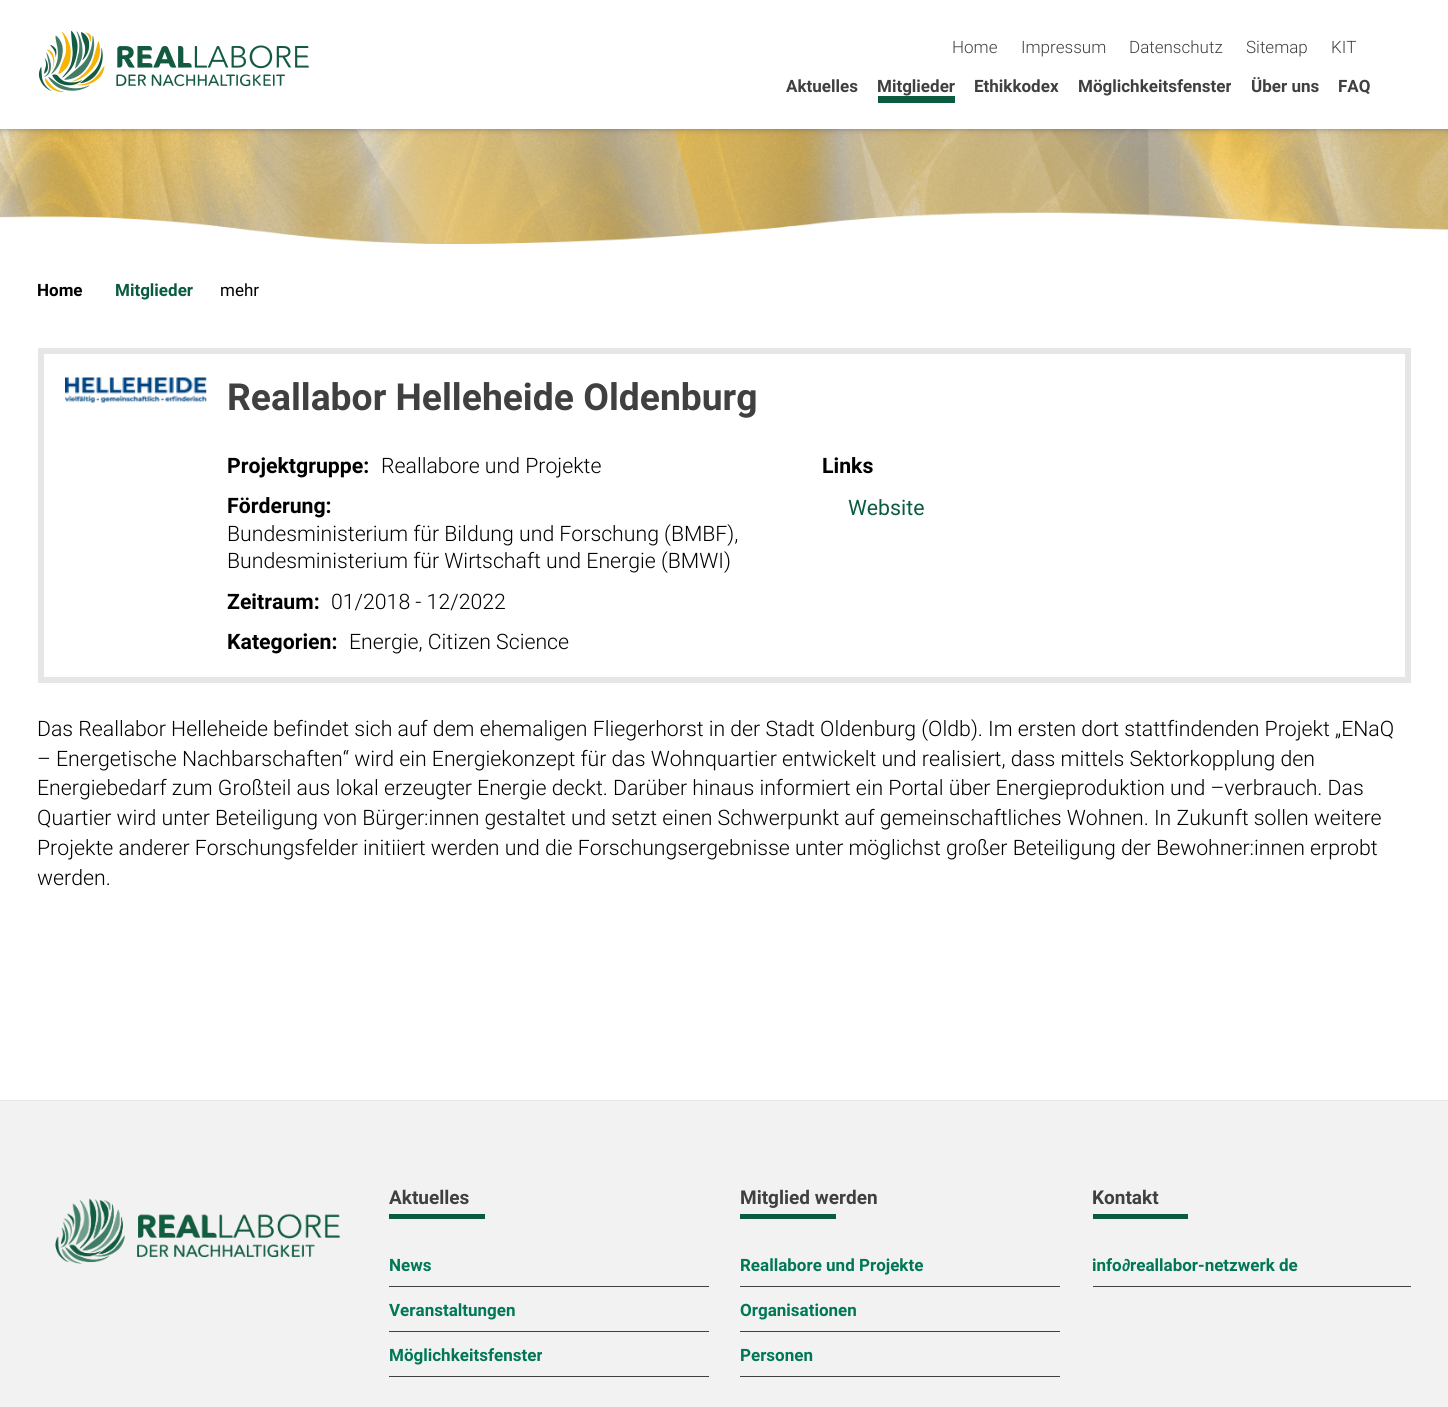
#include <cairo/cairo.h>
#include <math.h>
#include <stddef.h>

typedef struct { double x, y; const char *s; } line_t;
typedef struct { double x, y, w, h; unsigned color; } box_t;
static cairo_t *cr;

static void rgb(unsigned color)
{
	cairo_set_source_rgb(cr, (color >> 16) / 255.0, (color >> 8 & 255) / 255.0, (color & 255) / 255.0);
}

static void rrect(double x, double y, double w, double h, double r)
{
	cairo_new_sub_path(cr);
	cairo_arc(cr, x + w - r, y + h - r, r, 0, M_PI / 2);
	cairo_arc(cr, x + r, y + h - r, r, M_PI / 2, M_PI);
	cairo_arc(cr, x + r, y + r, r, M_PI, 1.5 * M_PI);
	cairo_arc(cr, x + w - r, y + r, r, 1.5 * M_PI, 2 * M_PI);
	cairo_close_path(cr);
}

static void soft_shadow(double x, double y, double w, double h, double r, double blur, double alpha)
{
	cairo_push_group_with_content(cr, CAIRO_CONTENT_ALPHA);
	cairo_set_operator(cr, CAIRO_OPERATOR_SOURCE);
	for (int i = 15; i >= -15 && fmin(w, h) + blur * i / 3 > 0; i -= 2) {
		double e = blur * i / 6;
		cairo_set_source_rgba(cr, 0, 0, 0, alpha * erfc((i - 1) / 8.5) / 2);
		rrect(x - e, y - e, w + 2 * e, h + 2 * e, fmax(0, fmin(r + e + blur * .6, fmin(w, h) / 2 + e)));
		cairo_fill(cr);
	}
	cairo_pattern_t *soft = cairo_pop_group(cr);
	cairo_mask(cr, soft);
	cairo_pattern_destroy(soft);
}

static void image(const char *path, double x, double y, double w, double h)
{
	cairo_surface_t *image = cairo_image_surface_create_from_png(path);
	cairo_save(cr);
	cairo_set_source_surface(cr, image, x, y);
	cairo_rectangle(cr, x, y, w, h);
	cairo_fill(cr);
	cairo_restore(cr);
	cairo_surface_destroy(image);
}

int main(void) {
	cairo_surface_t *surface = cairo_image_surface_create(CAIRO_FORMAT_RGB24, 1448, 1407);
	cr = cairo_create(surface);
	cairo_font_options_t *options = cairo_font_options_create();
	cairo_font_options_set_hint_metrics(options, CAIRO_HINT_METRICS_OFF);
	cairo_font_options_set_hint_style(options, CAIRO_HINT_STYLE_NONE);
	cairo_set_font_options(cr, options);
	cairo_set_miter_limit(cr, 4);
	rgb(0xffffff);
	cairo_paint(cr);
	image("img/2.png", 0, 129, 1448, 115);
	rgb(0x404040);
	soft_shadow(0, 0, 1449, 129, 0, 3, 0.5);
	rgb(0xffffff);
	cairo_rectangle(cr, 0, 0, 1448, 129);
	cairo_fill(cr);
	image("img/1.png", 38, 30, 271, 63);
	rgb(0x0b5c3f);
	cairo_rectangle(cr, 878, 96, 77, 7);
	cairo_fill(cr);
	cairo_rectangle(cr, 41, 351, 1367, 329);
	rgb(0xe6e6e6);
	cairo_set_line_width(cr, 6);
	cairo_stroke(cr);
	image("img/3.png", 65, 377, 142, 26);
	rgb(0xf2f2f2);
	cairo_rectangle(cr, 0, 1101, 1448, 306);
	cairo_fill(cr);
	rgb(0xe6e6e6);
	cairo_rectangle(cr, 0, 1100, 1448, 1);
	cairo_fill(cr);
	image("img/4.png", 55, 1198, 285, 66);
	{
		static const box_t items[] = {
			{389, 1214, 96, 5, 0x0b5c3f},
			{389, 1286, 320, 1, 0x404040},
			{389, 1331, 320, 1, 0x404040},
			{389, 1376, 320, 1, 0x404040},
			{740, 1214, 96, 5, 0x0b5c3f},
			{740, 1286, 320, 1, 0x404040},
			{740, 1331, 320, 1, 0x404040},
			{740, 1376, 320, 1, 0x404040},
			{1093, 1214, 95, 5, 0x0b5c3f},
			{1093, 1286, 318, 1, 0x404040},
		};
		for (size_t i = 0; i < sizeof items / sizeof *items; i++) {
			rgb(items[i].color);
			cairo_rectangle(cr, items[i].x, items[i].y, items[i].w, items[i].h);
			cairo_fill(cr);
		}
	}
	cairo_select_font_face(cr, "Roboto Light", CAIRO_FONT_SLANT_NORMAL, CAIRO_FONT_WEIGHT_NORMAL);
	cairo_set_font_size(cr, 17);
	{
		static const line_t items[] = {
			{952, 53, "Home"},
			{1021, 53, "Impressum"},
			{1129, 53, "Datenschutz"},
			{1246, 53, "Sitemap"},
			{1331, 53, "KIT"},
		};
		for (size_t i = 0; i < sizeof items / sizeof *items; i++) {
			cairo_move_to(cr, items[i].x, items[i].y);
			cairo_show_text(cr, items[i].s);
		}
	}
	cairo_select_font_face(cr, "Roboto", CAIRO_FONT_SLANT_NORMAL, CAIRO_FONT_WEIGHT_BOLD);
	{
		static const line_t items[] = {
			{786, 92, "Aktuelles"},
			{877, 92, "Mitglieder"},
			{974, 92, "Ethikkodex"},
			{1078, 92, "Möglichkeitsfenster"},
			{1251, 92, "Über uns"},
			{1338, 92, "FAQ"},
		};
		for (size_t i = 0; i < sizeof items / sizeof *items; i++) {
			cairo_move_to(cr, items[i].x, items[i].y);
			cairo_show_text(cr, items[i].s);
		}
	}
	rgb(0x000000);
	cairo_move_to(cr, 37, 296);
	cairo_show_text(cr, "Home");
	rgb(0x0b5c3f);
	cairo_move_to(cr, 115, 296);
	cairo_show_text(cr, "Mitglieder");
	cairo_select_font_face(cr, "Roboto", CAIRO_FONT_SLANT_NORMAL, CAIRO_FONT_WEIGHT_NORMAL);
	rgb(0x000000);
	cairo_move_to(cr, 220, 296);
	cairo_show_text(cr, "mehr");
	cairo_select_font_face(cr, "Roboto", CAIRO_FONT_SLANT_NORMAL, CAIRO_FONT_WEIGHT_BOLD);
	cairo_set_font_size(cr, 37.25);
	rgb(0x404040);
	cairo_move_to(cr, 227, 410);
	cairo_show_text(cr, "Reallabor Helleheide Oldenburg");
	cairo_set_font_size(cr, 21.25);
	rgb(0x000000);
	cairo_move_to(cr, 227, 473);
	cairo_show_text(cr, "Projektgruppe:");
	cairo_select_font_face(cr, "Roboto Light", CAIRO_FONT_SLANT_NORMAL, CAIRO_FONT_WEIGHT_NORMAL);
	cairo_move_to(cr, 381, 473);
	cairo_show_text(cr, "Reallabore und Projekte");
	cairo_select_font_face(cr, "Roboto", CAIRO_FONT_SLANT_NORMAL, CAIRO_FONT_WEIGHT_BOLD);
	cairo_move_to(cr, 227, 513);
	cairo_show_text(cr, "Förderung:");
	cairo_select_font_face(cr, "Roboto Light", CAIRO_FONT_SLANT_NORMAL, CAIRO_FONT_WEIGHT_NORMAL);
	cairo_move_to(cr, 227, 541);
	cairo_show_text(cr, "Bundesministerium für Bildung und Forschung (BMBF),");
	cairo_move_to(cr, 227, 568);
	cairo_show_text(cr, "Bundesministerium für Wirtschaft und Energie (BMWI)");
	cairo_select_font_face(cr, "Roboto", CAIRO_FONT_SLANT_NORMAL, CAIRO_FONT_WEIGHT_BOLD);
	cairo_move_to(cr, 227, 609);
	cairo_show_text(cr, "Zeitraum:");
	cairo_select_font_face(cr, "Roboto Light", CAIRO_FONT_SLANT_NORMAL, CAIRO_FONT_WEIGHT_NORMAL);
	cairo_move_to(cr, 331, 609);
	cairo_show_text(cr, "01/2018 - 12/2022");
	cairo_select_font_face(cr, "Roboto", CAIRO_FONT_SLANT_NORMAL, CAIRO_FONT_WEIGHT_BOLD);
	cairo_move_to(cr, 227, 649);
	cairo_show_text(cr, "Kategorien:");
	cairo_select_font_face(cr, "Roboto Light", CAIRO_FONT_SLANT_NORMAL, CAIRO_FONT_WEIGHT_NORMAL);
	cairo_move_to(cr, 349, 649);
	cairo_show_text(cr, "Energie, Citizen Science");
	cairo_select_font_face(cr, "Roboto", CAIRO_FONT_SLANT_NORMAL, CAIRO_FONT_WEIGHT_BOLD);
	cairo_move_to(cr, 822, 473);
	cairo_show_text(cr, "Links");
	cairo_select_font_face(cr, "Roboto", CAIRO_FONT_SLANT_NORMAL, CAIRO_FONT_WEIGHT_NORMAL);
	rgb(0x0b5c3f);
	cairo_move_to(cr, 848, 515);
	cairo_show_text(cr, "Website");
	cairo_select_font_face(cr, "Roboto Light", CAIRO_FONT_SLANT_NORMAL, CAIRO_FONT_WEIGHT_NORMAL);
	rgb(0x000000);
	{
		static const line_t items[] = {
			{37, 736, "Das Reallabor Helleheide befindet sich auf dem ehemaligen Fliegerhorst in der Stadt Oldenburg (Oldb). Im ersten dort stattfindenden Projekt „ENaQ"},
			{37, 766, "– Energetische Nachbarschaften“ wird ein Energiekonzept für das Wohnquartier entwickelt und realisiert, dass mittels Sektorkopplung den"},
			{37, 795, "Energiebedarf zum Großteil aus lokal erzeugter Energie deckt. Darüber hinaus informiert ein Portal über Energieproduktion und –verbrauch. Das"},
			{37, 825, "Quartier wird unter Beteiligung von Bürger:innen gestaltet und setzt einen Schwerpunkt auf gemeinschaftliches Wohnen. In Zukunft sollen weitere"},
			{37, 855, "Projekte anderer Forschungsfelder initiiert werden und die Forschungsergebnisse unter möglichst großer Beteiligung der Bewohner:innen erprobt"},
			{37, 885, "werden."},
		};
		for (size_t i = 0; i < sizeof items / sizeof *items; i++) {
			cairo_move_to(cr, items[i].x, items[i].y);
			cairo_show_text(cr, items[i].s);
		}
	}
	cairo_select_font_face(cr, "Roboto", CAIRO_FONT_SLANT_NORMAL, CAIRO_FONT_WEIGHT_BOLD);
	cairo_set_font_size(cr, 19);
	rgb(0x404040);
	cairo_move_to(cr, 389, 1204);
	cairo_show_text(cr, "Aktuelles");
	cairo_set_font_size(cr, 17);
	rgb(0x007755);
	{
		static const line_t items[] = {
			{389, 1271, "News"},
			{389, 1316, "Veranstaltungen"},
			{389, 1361, "Möglichkeitsfenster"},
		};
		for (size_t i = 0; i < sizeof items / sizeof *items; i++) {
			cairo_move_to(cr, items[i].x, items[i].y);
			cairo_show_text(cr, items[i].s);
		}
	}
	cairo_set_font_size(cr, 19);
	rgb(0x404040);
	cairo_move_to(cr, 740, 1204);
	cairo_show_text(cr, "Mitglied werden");
	cairo_set_font_size(cr, 17);
	rgb(0x007755);
	{
		static const line_t items[] = {
			{740, 1271, "Reallabore und Projekte"},
			{740, 1316, "Organisationen"},
			{740, 1361, "Personen"},
		};
		for (size_t i = 0; i < sizeof items / sizeof *items; i++) {
			cairo_move_to(cr, items[i].x, items[i].y);
			cairo_show_text(cr, items[i].s);
		}
	}
	cairo_set_font_size(cr, 19);
	rgb(0x404040);
	cairo_move_to(cr, 1092, 1204);
	cairo_show_text(cr, "Kontakt");
	cairo_set_font_size(cr, 17);
	rgb(0x007755);
	cairo_move_to(cr, 1092, 1271);
	cairo_show_text(cr, "info");
	cairo_select_font_face(cr, "Liberation Sans", CAIRO_FONT_SLANT_NORMAL, CAIRO_FONT_WEIGHT_BOLD);
	cairo_move_to(cr, 1122, 1271);
	cairo_show_text(cr, "∂");
	cairo_select_font_face(cr, "Roboto", CAIRO_FONT_SLANT_NORMAL, CAIRO_FONT_WEIGHT_BOLD);
	cairo_move_to(cr, 1130, 1271);
	cairo_show_text(cr, "reallabor-netzwerk de");
	cairo_surface_write_to_png(surface, "page.png");
	cairo_font_options_destroy(options);
	cairo_destroy(cr);
	cairo_surface_destroy(surface);
	return 0;
}
